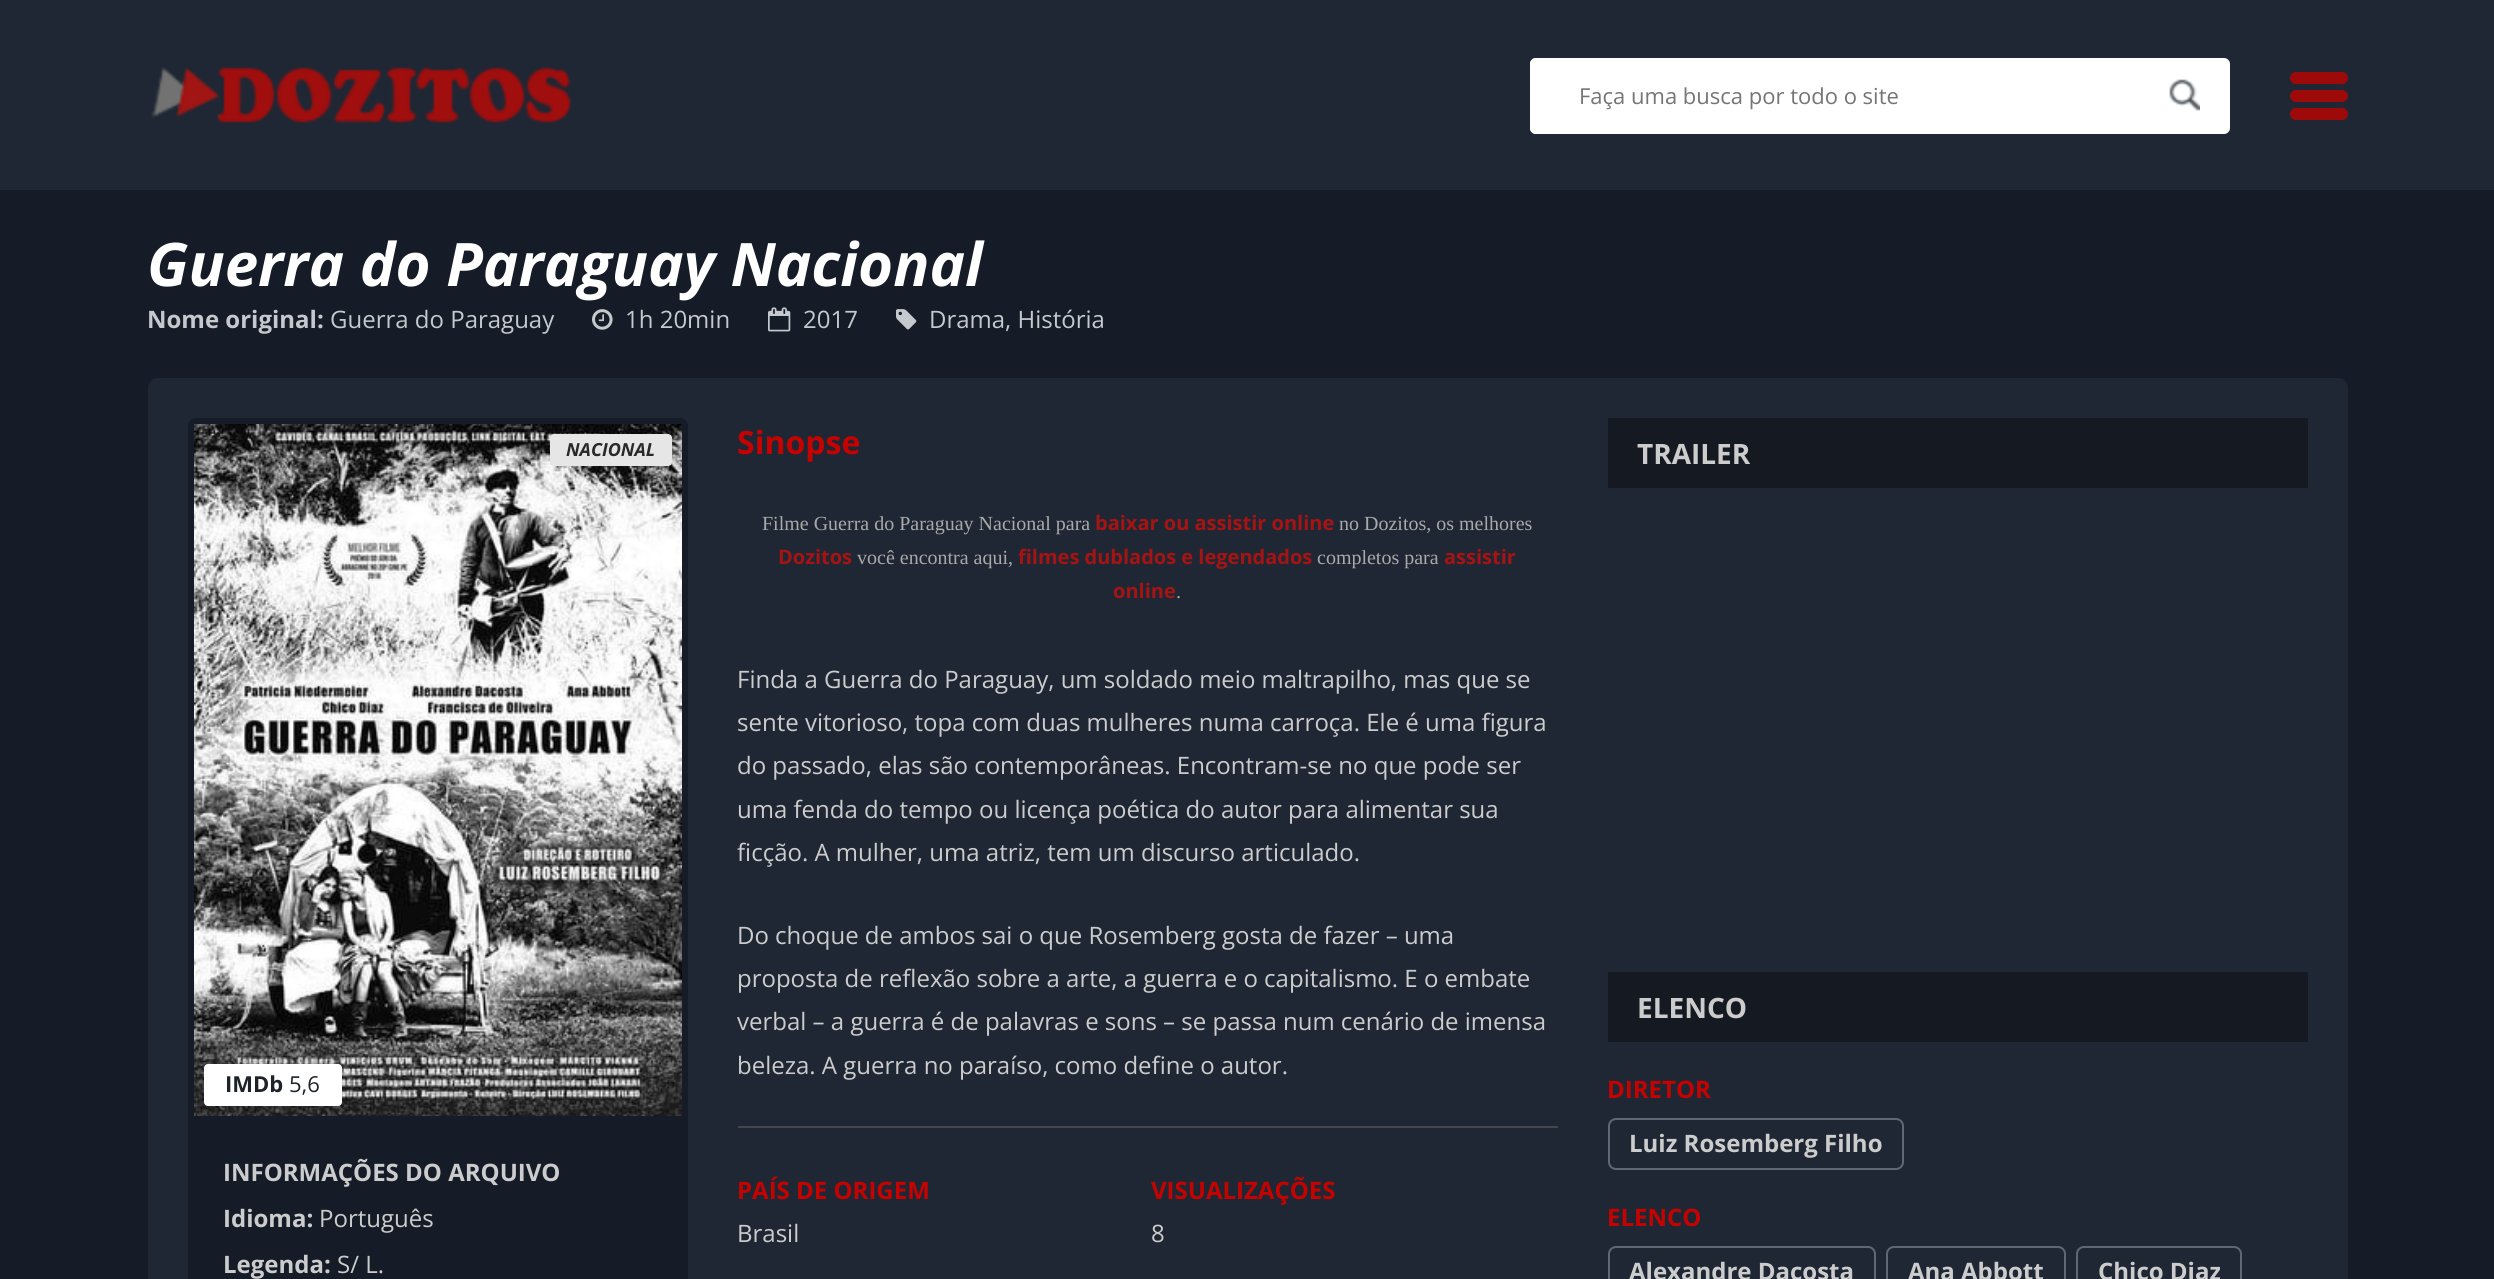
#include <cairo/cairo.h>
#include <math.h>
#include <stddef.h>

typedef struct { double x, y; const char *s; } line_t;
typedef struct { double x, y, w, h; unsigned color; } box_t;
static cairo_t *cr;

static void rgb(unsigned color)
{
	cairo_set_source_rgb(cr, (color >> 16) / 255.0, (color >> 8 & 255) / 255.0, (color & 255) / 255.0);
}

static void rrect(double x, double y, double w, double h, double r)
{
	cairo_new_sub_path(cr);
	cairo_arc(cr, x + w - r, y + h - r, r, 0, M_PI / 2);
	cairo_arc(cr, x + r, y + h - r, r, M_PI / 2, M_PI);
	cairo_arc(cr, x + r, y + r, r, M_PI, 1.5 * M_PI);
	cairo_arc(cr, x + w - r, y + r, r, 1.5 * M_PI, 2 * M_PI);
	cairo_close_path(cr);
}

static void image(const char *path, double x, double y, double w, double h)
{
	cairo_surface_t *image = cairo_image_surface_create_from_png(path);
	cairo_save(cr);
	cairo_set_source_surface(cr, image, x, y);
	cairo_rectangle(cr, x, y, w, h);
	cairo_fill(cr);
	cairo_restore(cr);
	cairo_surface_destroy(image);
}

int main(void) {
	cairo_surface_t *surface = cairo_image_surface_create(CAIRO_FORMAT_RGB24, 2494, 1279);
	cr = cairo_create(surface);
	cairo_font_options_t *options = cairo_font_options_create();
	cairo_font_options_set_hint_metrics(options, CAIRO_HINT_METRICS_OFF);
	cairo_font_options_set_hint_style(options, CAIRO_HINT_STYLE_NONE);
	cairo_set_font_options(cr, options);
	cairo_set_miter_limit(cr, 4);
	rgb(0x151b27);
	cairo_paint(cr);
	rgb(0x1f2734);
	cairo_rectangle(cr, 0, 0, 2494, 190);
	cairo_fill(cr);
	image("img/1.png", 151, 67, 420, 56);
	rgb(0xffffff);
	rrect(1530, 58, 700, 76, 6);
	cairo_fill(cr);
	cairo_new_path(cr);
	cairo_move_to(cr, 1536, 58);
	cairo_line_to(cr, 2140, 58);
	cairo_line_to(cr, 2140, 134);
	cairo_line_to(cr, 1536, 134);
	cairo_curve_to(cr, 1532.5, 134, 1530, 131.5, 1530, 128);
	cairo_line_to(cr, 1530, 64);
	cairo_curve_to(cr, 1530, 60.5, 1532.5, 58, 1536, 58);
	cairo_close_path(cr);
	cairo_fill(cr);
	image("img/2.png", 2169, 79, 31, 32);
	rgb(0x9e0909);
	rrect(2290, 72, 58, 12, 6);
	cairo_fill(cr);
	rrect(2290, 90, 58, 12, 6);
	cairo_fill(cr);
	rrect(2290, 108, 58, 12, 6);
	cairo_fill(cr);
	image("img/3.png", 592, 309, 21, 21);
	image("img/4.png", 768, 307, 23, 25);
	image("img/5.png", 896, 309, 21, 21);
	rgb(0x1f2734);
	rrect(148, 378, 2200, 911, 10);
	cairo_fill(cr);
	rgb(0x151b27);
	rrect(188, 418, 500, 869, 8);
	cairo_fill(cr);
	image("img/6.png", 194, 424, 488, 692);
	rgb(0xe6e6e6);
	rrect(550, 434, 122, 32, 4);
	cairo_fill(cr);
	rgb(0xffffff);
	rrect(204, 1064, 138, 42, 4);
	cairo_fill(cr);
	{
		static const box_t items[] = {
			{738, 1126, 820, 2, 0x44484a},
			{1608, 418, 700, 70, 0x151922},
			{1608, 972, 700, 70, 0x151922},
		};
		for (size_t i = 0; i < sizeof items / sizeof *items; i++) {
			rgb(items[i].color);
			cairo_rectangle(cr, items[i].x, items[i].y, items[i].w, items[i].h);
			cairo_fill(cr);
		}
	}
	rrect(1609, 1119, 294, 50, 7);
	rgb(0x5f6775);
	cairo_stroke(cr);
	rrect(1609, 1247, 266, 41, 7);
	cairo_stroke(cr);
	rrect(1887, 1247, 178, 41, 7);
	cairo_stroke(cr);
	rrect(2077, 1247, 164, 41, 7);
	cairo_stroke(cr);
	cairo_select_font_face(cr, "Open Sans", CAIRO_FONT_SLANT_NORMAL, CAIRO_FONT_WEIGHT_NORMAL);
	cairo_set_font_size(cr, 22);
	rgb(0x757575);
	cairo_move_to(cr, 1579, 104);
	cairo_show_text(cr, "Faça uma busca por todo o site");
	cairo_select_font_face(cr, "Open Sans", CAIRO_FONT_SLANT_ITALIC, CAIRO_FONT_WEIGHT_BOLD);
	cairo_set_font_size(cr, 60);
	rgb(0xffffff);
	cairo_move_to(cr, 147, 286);
	cairo_show_text(cr, "Guerra do Paraguay Nacional");
	cairo_select_font_face(cr, "Open Sans", CAIRO_FONT_SLANT_NORMAL, CAIRO_FONT_WEIGHT_BOLD);
	cairo_set_font_size(cr, 24);
	rgb(0xc5c9cd);
	cairo_move_to(cr, 147, 328);
	cairo_show_text(cr, "Nome original:");
	cairo_select_font_face(cr, "Open Sans", CAIRO_FONT_SLANT_NORMAL, CAIRO_FONT_WEIGHT_NORMAL);
	{
		static const line_t items[] = {
			{330, 328, "Guerra do Paraguay"},
			{625, 328, "1h 20min"},
			{803, 328, "2017"},
			{929, 328, "Drama, História"},
		};
		for (size_t i = 0; i < sizeof items / sizeof *items; i++) {
			cairo_move_to(cr, items[i].x, items[i].y);
			cairo_show_text(cr, items[i].s);
		}
	}
	cairo_select_font_face(cr, "Open Sans", CAIRO_FONT_SLANT_ITALIC, CAIRO_FONT_WEIGHT_BOLD);
	cairo_set_font_size(cr, 18);
	rgb(0x292929);
	cairo_move_to(cr, 566, 456);
	cairo_show_text(cr, "NACIONAL");
	cairo_select_font_face(cr, "Open Sans", CAIRO_FONT_SLANT_NORMAL, CAIRO_FONT_WEIGHT_BOLD);
	cairo_set_font_size(cr, 22);
	rgb(0x1d2329);
	cairo_move_to(cr, 225, 1092);
	cairo_show_text(cr, "IMDb");
	cairo_select_font_face(cr, "Open Sans", CAIRO_FONT_SLANT_NORMAL, CAIRO_FONT_WEIGHT_NORMAL);
	cairo_move_to(cr, 289, 1092);
	cairo_show_text(cr, "5,6");
	cairo_select_font_face(cr, "Open Sans", CAIRO_FONT_SLANT_NORMAL, CAIRO_FONT_WEIGHT_BOLD);
	cairo_set_font_size(cr, 24);
	rgb(0xcccccc);
	cairo_move_to(cr, 223, 1181);
	cairo_show_text(cr, "INFORMAÇÕES DO ARQUIVO");
	cairo_move_to(cr, 223, 1227);
	cairo_show_text(cr, "Idioma:");
	cairo_select_font_face(cr, "Open Sans", CAIRO_FONT_SLANT_NORMAL, CAIRO_FONT_WEIGHT_NORMAL);
	cairo_move_to(cr, 319, 1227);
	cairo_show_text(cr, "Português");
	cairo_select_font_face(cr, "Open Sans", CAIRO_FONT_SLANT_NORMAL, CAIRO_FONT_WEIGHT_BOLD);
	cairo_move_to(cr, 223, 1273);
	cairo_show_text(cr, "Legenda:");
	cairo_select_font_face(cr, "Open Sans", CAIRO_FONT_SLANT_NORMAL, CAIRO_FONT_WEIGHT_NORMAL);
	cairo_move_to(cr, 337, 1273);
	cairo_show_text(cr, "S/ L.");
	cairo_select_font_face(cr, "Open Sans", CAIRO_FONT_SLANT_NORMAL, CAIRO_FONT_WEIGHT_BOLD);
	cairo_set_font_size(cr, 32);
	rgb(0xc60200);
	cairo_move_to(cr, 737, 454);
	cairo_show_text(cr, "Sinopse");
	cairo_select_font_face(cr, "Liberation Serif", CAIRO_FONT_SLANT_NORMAL, CAIRO_FONT_WEIGHT_NORMAL);
	cairo_set_font_size(cr, 20);
	rgb(0xa9a9a9);
	cairo_move_to(cr, 762, 530);
	cairo_show_text(cr, "Filme Guerra do Paraguay Nacional para");
	cairo_select_font_face(cr, "Open Sans", CAIRO_FONT_SLANT_NORMAL, CAIRO_FONT_WEIGHT_BOLD);
	rgb(0xa61313);
	cairo_move_to(cr, 1095, 530);
	cairo_show_text(cr, "baixar ou assistir online");
	cairo_select_font_face(cr, "Liberation Serif", CAIRO_FONT_SLANT_NORMAL, CAIRO_FONT_WEIGHT_NORMAL);
	rgb(0xa9a9a9);
	cairo_move_to(cr, 1339, 530);
	cairo_show_text(cr, "no Dozitos, os melhores");
	cairo_select_font_face(cr, "Open Sans", CAIRO_FONT_SLANT_NORMAL, CAIRO_FONT_WEIGHT_BOLD);
	rgb(0xa61313);
	cairo_move_to(cr, 778, 564);
	cairo_show_text(cr, "Dozitos");
	cairo_select_font_face(cr, "Liberation Serif", CAIRO_FONT_SLANT_NORMAL, CAIRO_FONT_WEIGHT_NORMAL);
	rgb(0xa9a9a9);
	cairo_move_to(cr, 857, 564);
	cairo_show_text(cr, "você encontra aqui,");
	cairo_select_font_face(cr, "Open Sans", CAIRO_FONT_SLANT_NORMAL, CAIRO_FONT_WEIGHT_BOLD);
	rgb(0xa61313);
	cairo_move_to(cr, 1018, 564);
	cairo_show_text(cr, "filmes dublados e legendados");
	cairo_select_font_face(cr, "Liberation Serif", CAIRO_FONT_SLANT_NORMAL, CAIRO_FONT_WEIGHT_NORMAL);
	rgb(0xa9a9a9);
	cairo_move_to(cr, 1317, 564);
	cairo_show_text(cr, "completos para");
	cairo_select_font_face(cr, "Open Sans", CAIRO_FONT_SLANT_NORMAL, CAIRO_FONT_WEIGHT_BOLD);
	rgb(0xa61313);
	cairo_move_to(cr, 1444, 564);
	cairo_show_text(cr, "assistir");
	cairo_move_to(cr, 1113, 598);
	cairo_show_text(cr, "online");
	cairo_select_font_face(cr, "Liberation Serif", CAIRO_FONT_SLANT_NORMAL, CAIRO_FONT_WEIGHT_NORMAL);
	rgb(0xa9a9a9);
	cairo_move_to(cr, 1176, 598);
	cairo_show_text(cr, ".");
	cairo_select_font_face(cr, "Open Sans", CAIRO_FONT_SLANT_NORMAL, CAIRO_FONT_WEIGHT_NORMAL);
	cairo_set_font_size(cr, 24);
	rgb(0xcccccc);
	{
		static const line_t items[] = {
			{737, 688, "Finda a Guerra do Paraguay, um soldado meio maltrapilho, mas que se"},
			{737, 731, "sente vitorioso, topa com duas mulheres numa carroça. Ele é uma figura"},
			{737, 774, "do passado, elas são contemporâneas. Encontram-se no que pode ser"},
			{737, 818, "uma fenda do tempo ou licença poética do autor para alimentar sua"},
			{737, 861, "ficção. A mulher, uma atriz, tem um discurso articulado."},
			{737, 944, "Do choque de ambos sai o que Rosemberg gosta de fazer – uma"},
			{737, 987, "proposta de reflexão sobre a arte, a guerra e o capitalismo. E o embate"},
			{737, 1030, "verbal – a guerra é de palavras e sons – se passa num cenário de imensa"},
			{737, 1074, "beleza. A guerra no paraíso, como define o autor."},
		};
		for (size_t i = 0; i < sizeof items / sizeof *items; i++) {
			cairo_move_to(cr, items[i].x, items[i].y);
			cairo_show_text(cr, items[i].s);
		}
	}
	cairo_select_font_face(cr, "Open Sans", CAIRO_FONT_SLANT_NORMAL, CAIRO_FONT_WEIGHT_BOLD);
	rgb(0xc60200);
	cairo_move_to(cr, 737, 1199);
	cairo_show_text(cr, "PAÍS DE ORIGEM");
	cairo_select_font_face(cr, "Open Sans", CAIRO_FONT_SLANT_NORMAL, CAIRO_FONT_WEIGHT_NORMAL);
	rgb(0xcccccc);
	cairo_move_to(cr, 737, 1242);
	cairo_show_text(cr, "Brasil");
	cairo_select_font_face(cr, "Open Sans", CAIRO_FONT_SLANT_NORMAL, CAIRO_FONT_WEIGHT_BOLD);
	rgb(0xc60200);
	cairo_move_to(cr, 1151, 1199);
	cairo_show_text(cr, "VISUALIZAÇÕES");
	cairo_select_font_face(cr, "Open Sans", CAIRO_FONT_SLANT_NORMAL, CAIRO_FONT_WEIGHT_NORMAL);
	rgb(0xcccccc);
	cairo_move_to(cr, 1151, 1242);
	cairo_show_text(cr, "8");
	cairo_select_font_face(cr, "Open Sans", CAIRO_FONT_SLANT_NORMAL, CAIRO_FONT_WEIGHT_BOLD);
	cairo_set_font_size(cr, 28);
	cairo_move_to(cr, 1637, 464);
	cairo_show_text(cr, "TRAILER");
	cairo_move_to(cr, 1637, 1018);
	cairo_show_text(cr, "ELENCO");
	cairo_set_font_size(cr, 24);
	rgb(0xc60200);
	cairo_move_to(cr, 1607, 1098);
	cairo_show_text(cr, "DIRETOR");
	rgb(0xcccccc);
	cairo_move_to(cr, 1629, 1152);
	cairo_show_text(cr, "Luiz Rosemberg Filho");
	rgb(0xc60200);
	cairo_move_to(cr, 1607, 1226);
	cairo_show_text(cr, "ELENCO");
	rgb(0xcccccc);
	{
		static const line_t items[] = {
			{1629, 1280, "Alexandre Dacosta"},
			{1908, 1280, "Ana Abbott"},
			{2098, 1280, "Chico Diaz"},
		};
		for (size_t i = 0; i < sizeof items / sizeof *items; i++) {
			cairo_move_to(cr, items[i].x, items[i].y);
			cairo_show_text(cr, items[i].s);
		}
	}
	cairo_surface_write_to_png(surface, "page.png");
	cairo_font_options_destroy(options);
	cairo_destroy(cr);
	cairo_surface_destroy(surface);
	return 0;
}
